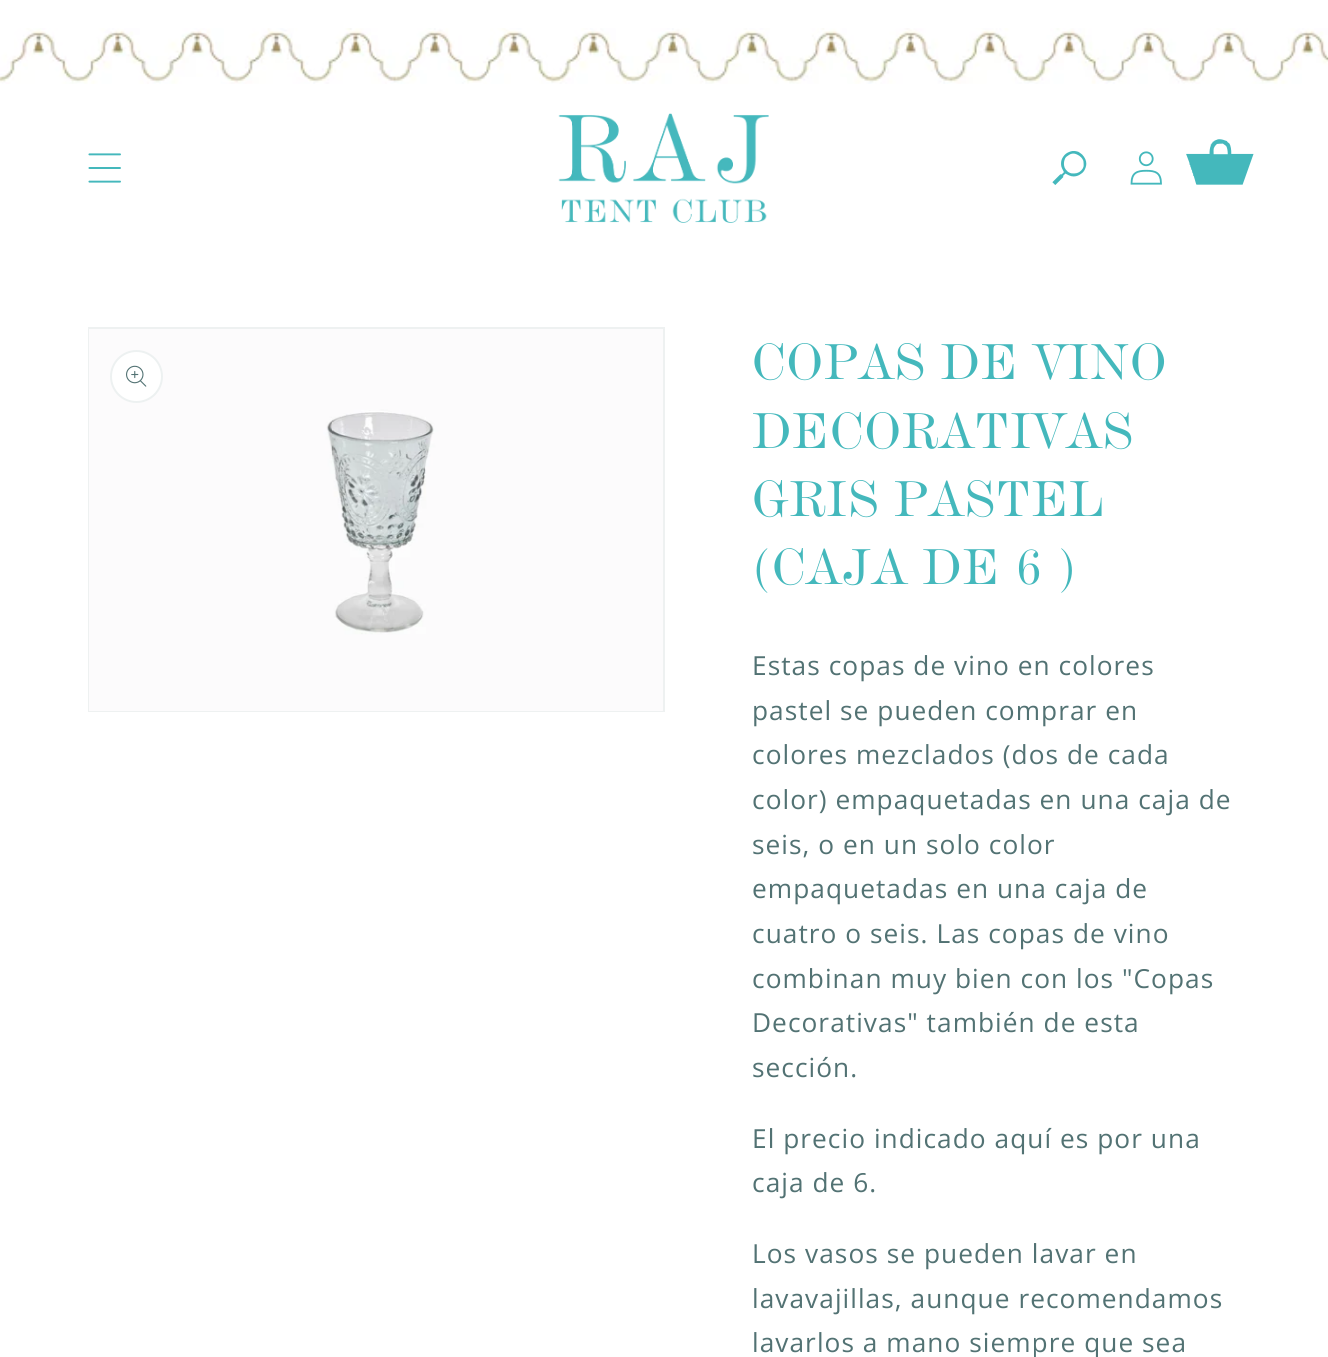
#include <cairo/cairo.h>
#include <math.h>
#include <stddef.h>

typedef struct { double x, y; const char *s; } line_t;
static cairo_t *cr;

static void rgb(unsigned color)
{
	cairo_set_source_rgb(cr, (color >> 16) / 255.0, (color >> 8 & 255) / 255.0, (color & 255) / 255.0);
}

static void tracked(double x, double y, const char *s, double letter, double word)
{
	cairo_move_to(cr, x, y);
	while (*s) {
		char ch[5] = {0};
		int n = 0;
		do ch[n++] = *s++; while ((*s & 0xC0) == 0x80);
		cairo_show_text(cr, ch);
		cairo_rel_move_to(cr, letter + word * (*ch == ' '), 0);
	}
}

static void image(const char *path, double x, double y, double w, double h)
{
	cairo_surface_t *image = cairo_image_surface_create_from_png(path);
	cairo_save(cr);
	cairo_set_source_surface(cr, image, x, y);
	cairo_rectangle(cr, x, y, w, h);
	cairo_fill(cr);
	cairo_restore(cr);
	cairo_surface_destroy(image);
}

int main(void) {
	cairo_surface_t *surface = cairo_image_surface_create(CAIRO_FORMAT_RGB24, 1328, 1357);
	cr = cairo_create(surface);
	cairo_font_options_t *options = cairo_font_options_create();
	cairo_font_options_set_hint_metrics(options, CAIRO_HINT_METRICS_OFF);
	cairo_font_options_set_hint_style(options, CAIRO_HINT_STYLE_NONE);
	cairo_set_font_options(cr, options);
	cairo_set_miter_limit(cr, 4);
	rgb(0xffffff);
	cairo_paint(cr);
	image("img/1.png", 0, 28, 1328, 56);
	image("img/2.png", 88, 153, 33, 30);
	image("img/3.png", 558, 113, 211, 110);
	image("img/4.png", 1052, 151, 35, 34);
	image("img/5.png", 1130, 151, 32, 34);
	image("img/6.png", 1186, 139, 68, 46);
	cairo_rectangle(cr, 89, 328, 575, 383);
	rgb(0xeef1f1);
	cairo_stroke(cr);
	image("img/7.png", 89, 329, 574, 382);
	rgb(0xffffff);
	cairo_arc(cr, 136.5, 376.5, 25.5, 0, 2 * M_PI);
	cairo_fill_preserve(cr);
	rgb(0xedf1f1);
	cairo_stroke(cr);
	image("img/8.png", 126, 365, 21, 22);
	cairo_select_font_face(cr, "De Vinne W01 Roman", CAIRO_FONT_SLANT_NORMAL, CAIRO_FONT_WEIGHT_NORMAL);
	cairo_set_font_size(cr, 52.5);
	rgb(0x44b8bc);
	{
		static const line_t items[] = {
			{752, 379, "COPAS DE VINO"},
			{752, 448, "DECORATIVAS"},
			{752, 516, "GRIS PASTEL"},
			{752, 584, "(CAJA DE 6 )"},
		};
		for (size_t i = 0; i < sizeof items / sizeof *items; i++) {
			tracked(items[i].x, items[i].y, items[i].s, 1.05, 0);
		}
	}
	cairo_select_font_face(cr, "Open Sans", CAIRO_FONT_SLANT_NORMAL, CAIRO_FONT_WEIGHT_NORMAL);
	cairo_set_font_size(cr, 26.25);
	rgb(0x527273);
	{
		static const line_t items[] = {
			{752, 675, "Estas copas de vino en colores"},
			{752, 720, "pastel se pueden comprar en"},
			{752, 764, "colores mezclados (dos de cada"},
			{752, 809, "color) empaquetadas en una caja de"},
			{752, 854, "seis, o en un solo color"},
			{752, 898, "empaquetadas en una caja de"},
			{752, 943, "cuatro o seis. Las copas de vino"},
			{752, 988, "combinan muy bien con los \"Copas"},
			{752, 1032, "Decorativas\" también de esta"},
			{752, 1077, "sección."},
			{752, 1148, "El precio indicado aquí es por una"},
			{752, 1192, "caja de 6."},
			{752, 1263, "Los vasos se pueden lavar en"},
			{752, 1308, "lavavajillas, aunque recomendamos"},
			{752, 1352, "lavarlos a mano siempre que sea"},
		};
		for (size_t i = 0; i < sizeof items / sizeof *items; i++) {
			tracked(items[i].x, items[i].y, items[i].s, 1.05, 0);
		}
	}
	cairo_surface_write_to_png(surface, "page.png");
	cairo_font_options_destroy(options);
	cairo_destroy(cr);
	cairo_surface_destroy(surface);
	return 0;
}
